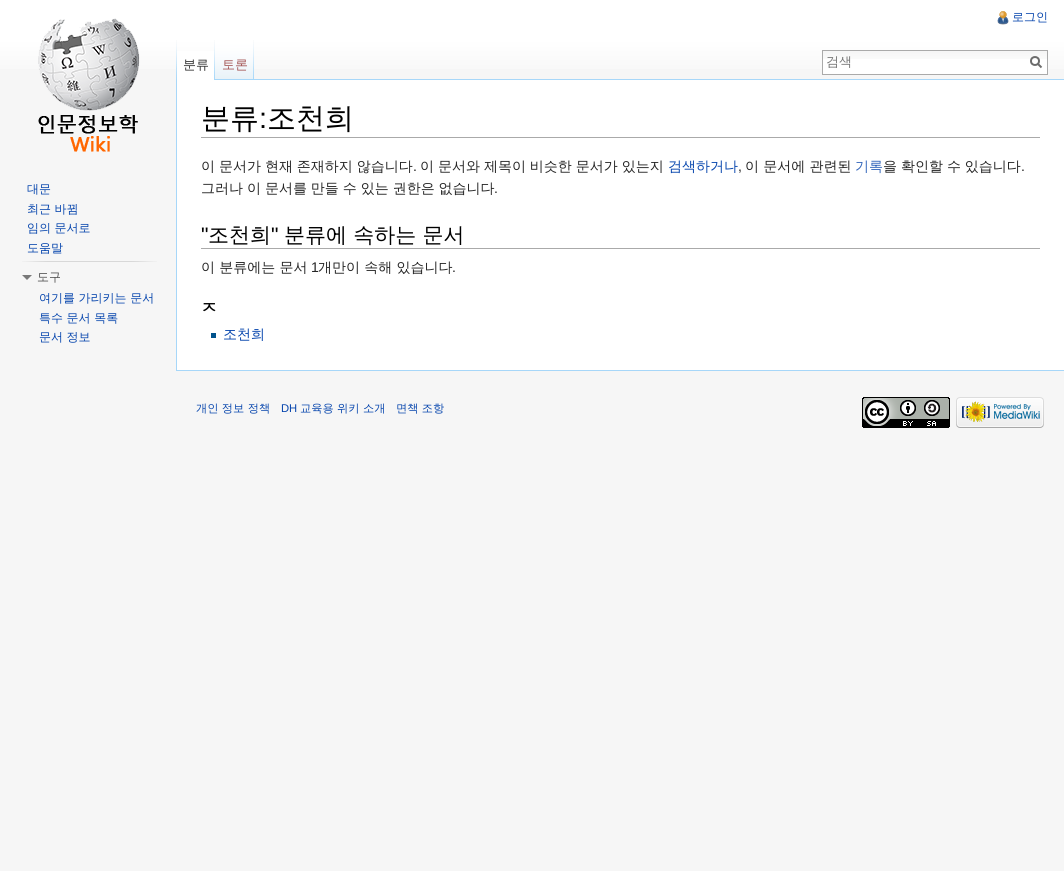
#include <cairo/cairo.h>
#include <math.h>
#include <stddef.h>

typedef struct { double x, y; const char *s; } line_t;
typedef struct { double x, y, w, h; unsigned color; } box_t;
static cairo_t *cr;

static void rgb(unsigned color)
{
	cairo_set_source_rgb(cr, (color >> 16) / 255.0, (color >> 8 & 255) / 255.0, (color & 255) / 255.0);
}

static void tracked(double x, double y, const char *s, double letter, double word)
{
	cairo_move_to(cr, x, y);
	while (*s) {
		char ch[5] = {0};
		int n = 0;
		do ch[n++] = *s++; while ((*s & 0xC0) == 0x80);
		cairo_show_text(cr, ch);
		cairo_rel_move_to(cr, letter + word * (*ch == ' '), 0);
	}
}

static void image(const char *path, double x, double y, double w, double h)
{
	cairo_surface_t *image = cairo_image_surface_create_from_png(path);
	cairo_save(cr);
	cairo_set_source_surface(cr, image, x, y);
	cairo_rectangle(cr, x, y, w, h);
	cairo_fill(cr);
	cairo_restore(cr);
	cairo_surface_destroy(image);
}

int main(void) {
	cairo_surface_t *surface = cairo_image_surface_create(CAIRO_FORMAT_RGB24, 1064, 871);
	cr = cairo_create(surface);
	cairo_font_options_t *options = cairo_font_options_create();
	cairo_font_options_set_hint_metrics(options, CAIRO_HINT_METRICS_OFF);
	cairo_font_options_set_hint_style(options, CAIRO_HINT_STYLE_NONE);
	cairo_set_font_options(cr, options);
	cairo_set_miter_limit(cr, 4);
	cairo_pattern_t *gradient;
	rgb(0xf6f6f6);
	cairo_paint(cr);
	gradient = cairo_pattern_create_linear(532, 0, 532, 80);
	cairo_pattern_add_color_stop_rgba(gradient, 0.5, 1, 1, 1, 1);
	cairo_pattern_add_color_stop_rgba(gradient, 1, 0.965, 0.965, 0.965, 1);
	cairo_set_source(cr, gradient);
	cairo_pattern_destroy(gradient);
	cairo_rectangle(cr, 0, 0, 1064, 69);
	cairo_fill(cr);
	image("img/1.png", 997, 11, 12, 14);
	image("img/2.png", 176, 40, 1, 39);
	rgb(0xffffff);
	cairo_rectangle(cr, 177, 51, 37, 29);
	cairo_fill(cr);
	image("img/3.png", 214, 40, 1, 40);
	image("img/4.png", 215, 40, 39, 40);
	image("img/5.png", 253, 40, 1, 39);
	cairo_rectangle(cr, 823, 59, 224, 15);
	cairo_fill(cr);
	image("img/6.png", 823, 51, 224, 8);
	cairo_rectangle(cr, 822.5, 50.5, 225, 24);
	rgb(0xaaaaaa);
	cairo_set_line_width(cr, 1);
	cairo_stroke(cr);
	cairo_new_path(cr);
	cairo_move_to(cr, 1041.5, 67.5);
	cairo_line_to(cr, 1037.5, 63.5);
	rgb(0x6c6c6c);
	cairo_set_line_width(cr, 2);
	cairo_stroke(cr);
	cairo_arc(cr, 1035, 61, 4, 0, 2 * M_PI);
	cairo_stroke(cr);
	image("img/7.png", 38, 18, 102, 134);
	image("img/8.png", 22, 261, 135, 1);
	rgb(0x797979);
	cairo_new_path(cr);
	cairo_move_to(cr, 32, 275);
	cairo_line_to(cr, 27, 280);
	cairo_line_to(cr, 22, 275);
	cairo_close_path(cr);
	cairo_fill(cr);
	{
		static const box_t items[] = {
			{177, 80, 887, 290, 0xffffff},
			{254, 79, 810, 1, 0xa7d7f9},
			{176, 370, 888, 1, 0xa7d7f9},
			{176, 79, 1, 292, 0xa7d7f9},
			{201, 137, 839, 1, 0xaaaaaa},
			{201, 248, 839, 1, 0xaaaaaa},
			{211, 333, 5, 5, 0x00528c},
		};
		for (size_t i = 0; i < sizeof items / sizeof *items; i++) {
			rgb(items[i].color);
			cairo_rectangle(cr, items[i].x, items[i].y, items[i].w, items[i].h);
			cairo_fill(cr);
		}
	}
	image("img/9.png", 862, 397, 88, 31);
	image("img/10.png", 956, 397, 88, 31);
	cairo_select_font_face(cr, "WenQuanYi Zen Hei Medium", CAIRO_FONT_SLANT_NORMAL, CAIRO_FONT_WEIGHT_NORMAL);
	cairo_set_font_size(cr, 12);
	rgb(0x0645ad);
	cairo_move_to(cr, 1012, 21);
	cairo_show_text(cr, "로그인");
	cairo_set_font_size(cr, 13);
	rgb(0x333333);
	cairo_move_to(cr, 183, 69);
	cairo_show_text(cr, "분류");
	rgb(0xa55858);
	cairo_move_to(cr, 222, 69);
	cairo_show_text(cr, "토론");
	rgb(0x757575);
	cairo_move_to(cr, 826, 66);
	cairo_show_text(cr, "검색");
	cairo_set_font_size(cr, 12);
	rgb(0x0645ad);
	{
		static const line_t items[] = {
			{27, 193, "대문"},
			{27, 213, "최근 바뀜"},
			{27, 232, "임의 문서로"},
			{27, 252, "도움말"},
		};
		for (size_t i = 0; i < sizeof items / sizeof *items; i++) {
			cairo_move_to(cr, items[i].x, items[i].y);
			cairo_show_text(cr, items[i].s);
		}
	}
	rgb(0x4d4d4d);
	cairo_move_to(cr, 37, 281);
	cairo_show_text(cr, "도구");
	rgb(0x0645ad);
	{
		static const line_t items[] = {
			{39, 302, "여기를 가리키는 문서"},
			{39, 322, "특수 문서 목록"},
			{39, 341, "문서 정보"},
		};
		for (size_t i = 0; i < sizeof items / sizeof *items; i++) {
			cairo_move_to(cr, items[i].x, items[i].y);
			cairo_show_text(cr, items[i].s);
		}
	}
	cairo_set_font_size(cr, 29);
	rgb(0x000000);
	cairo_move_to(cr, 201, 128);
	cairo_show_text(cr, "분류");
	cairo_select_font_face(cr, "Liberation Sans", CAIRO_FONT_SLANT_NORMAL, CAIRO_FONT_WEIGHT_NORMAL);
	cairo_move_to(cr, 259, 128);
	cairo_show_text(cr, ":");
	cairo_select_font_face(cr, "WenQuanYi Zen Hei Medium", CAIRO_FONT_SLANT_NORMAL, CAIRO_FONT_WEIGHT_NORMAL);
	cairo_move_to(cr, 267, 128);
	cairo_show_text(cr, "조천희");
	cairo_set_font_size(cr, 14);
	rgb(0x252525);
	tracked(201, 171, "이 문서가 현재 존재하지 않습니다", 0, -0.25);
	cairo_select_font_face(cr, "Liberation Sans", CAIRO_FONT_SLANT_NORMAL, CAIRO_FONT_WEIGHT_NORMAL);
	cairo_move_to(cr, 413, 171);
	cairo_show_text(cr, ".");
	cairo_select_font_face(cr, "WenQuanYi Zen Hei Medium", CAIRO_FONT_SLANT_NORMAL, CAIRO_FONT_WEIGHT_NORMAL);
	tracked(420, 171, "이 문서와 제목이 비슷한 문서가 있는지", 0, -0.25);
	rgb(0x0645ad);
	cairo_move_to(cr, 668, 171);
	cairo_show_text(cr, "검색하거나");
	cairo_select_font_face(cr, "Liberation Sans", CAIRO_FONT_SLANT_NORMAL, CAIRO_FONT_WEIGHT_NORMAL);
	rgb(0x252525);
	cairo_move_to(cr, 738, 171);
	cairo_show_text(cr, ",");
	cairo_select_font_face(cr, "WenQuanYi Zen Hei Medium", CAIRO_FONT_SLANT_NORMAL, CAIRO_FONT_WEIGHT_NORMAL);
	cairo_move_to(cr, 745, 171);
	cairo_show_text(cr, "이 문서에 관련된");
	rgb(0x3366bb);
	cairo_move_to(cr, 855, 171);
	cairo_show_text(cr, "기록");
	rgb(0x252525);
	tracked(883, 171, "을 확인할 수 있습니다", 0, -0.25);
	cairo_select_font_face(cr, "Liberation Sans", CAIRO_FONT_SLANT_NORMAL, CAIRO_FONT_WEIGHT_NORMAL);
	cairo_move_to(cr, 1021, 171);
	cairo_show_text(cr, ".");
	cairo_select_font_face(cr, "WenQuanYi Zen Hei Medium", CAIRO_FONT_SLANT_NORMAL, CAIRO_FONT_WEIGHT_NORMAL);
	tracked(201, 193, "그러나 이 문서를 만들 수 있는 권한은 없습니다", 0, -0.25);
	cairo_select_font_face(cr, "Liberation Sans", CAIRO_FONT_SLANT_NORMAL, CAIRO_FONT_WEIGHT_NORMAL);
	cairo_move_to(cr, 494, 193);
	cairo_show_text(cr, ".");
	cairo_set_font_size(cr, 21);
	rgb(0x000000);
	cairo_move_to(cr, 201, 242);
	cairo_show_text(cr, "\"");
	cairo_select_font_face(cr, "WenQuanYi Zen Hei Medium", CAIRO_FONT_SLANT_NORMAL, CAIRO_FONT_WEIGHT_NORMAL);
	cairo_move_to(cr, 208, 242);
	cairo_show_text(cr, "조천희");
	cairo_select_font_face(cr, "Liberation Sans", CAIRO_FONT_SLANT_NORMAL, CAIRO_FONT_WEIGHT_NORMAL);
	cairo_move_to(cr, 271, 242);
	cairo_show_text(cr, "\"");
	cairo_select_font_face(cr, "WenQuanYi Zen Hei Medium", CAIRO_FONT_SLANT_NORMAL, CAIRO_FONT_WEIGHT_NORMAL);
	cairo_move_to(cr, 284, 242);
	cairo_show_text(cr, "분류에 속하는 문서");
	cairo_set_font_size(cr, 14);
	rgb(0x252525);
	cairo_move_to(cr, 201, 272);
	cairo_show_text(cr, "이 분류에는 문서");
	cairo_select_font_face(cr, "Liberation Sans", CAIRO_FONT_SLANT_NORMAL, CAIRO_FONT_WEIGHT_NORMAL);
	cairo_move_to(cr, 311, 272);
	cairo_show_text(cr, "1");
	cairo_select_font_face(cr, "WenQuanYi Zen Hei Medium", CAIRO_FONT_SLANT_NORMAL, CAIRO_FONT_WEIGHT_NORMAL);
	cairo_move_to(cr, 318, 272);
	cairo_show_text(cr, "개만이 속해 있습니다");
	cairo_select_font_face(cr, "Liberation Sans", CAIRO_FONT_SLANT_NORMAL, CAIRO_FONT_WEIGHT_NORMAL);
	cairo_move_to(cr, 452, 272);
	cairo_show_text(cr, ".");
	cairo_select_font_face(cr, "WenQuanYi Zen Hei", CAIRO_FONT_SLANT_NORMAL, CAIRO_FONT_WEIGHT_BOLD);
	cairo_set_font_size(cr, 16);
	rgb(0x000000);
	cairo_move_to(cr, 201, 313);
	cairo_show_text(cr, "ㅈ");
	cairo_select_font_face(cr, "WenQuanYi Zen Hei Medium", CAIRO_FONT_SLANT_NORMAL, CAIRO_FONT_WEIGHT_NORMAL);
	cairo_set_font_size(cr, 14);
	rgb(0x0645ad);
	cairo_move_to(cr, 223, 339);
	cairo_show_text(cr, "조천희");
	cairo_set_font_size(cr, 11.25);
	cairo_move_to(cr, 196, 412);
	cairo_show_text(cr, "개인 정보 정책");
	cairo_select_font_face(cr, "Liberation Sans", CAIRO_FONT_SLANT_NORMAL, CAIRO_FONT_WEIGHT_NORMAL);
	cairo_move_to(cr, 281, 412);
	cairo_show_text(cr, "DH");
	cairo_select_font_face(cr, "WenQuanYi Zen Hei Medium", CAIRO_FONT_SLANT_NORMAL, CAIRO_FONT_WEIGHT_NORMAL);
	cairo_move_to(cr, 300, 412);
	cairo_show_text(cr, "교육용 위키 소개");
	cairo_move_to(cr, 396, 412);
	cairo_show_text(cr, "면책 조항");
	cairo_surface_write_to_png(surface, "page.png");
	cairo_font_options_destroy(options);
	cairo_destroy(cr);
	cairo_surface_destroy(surface);
	return 0;
}
